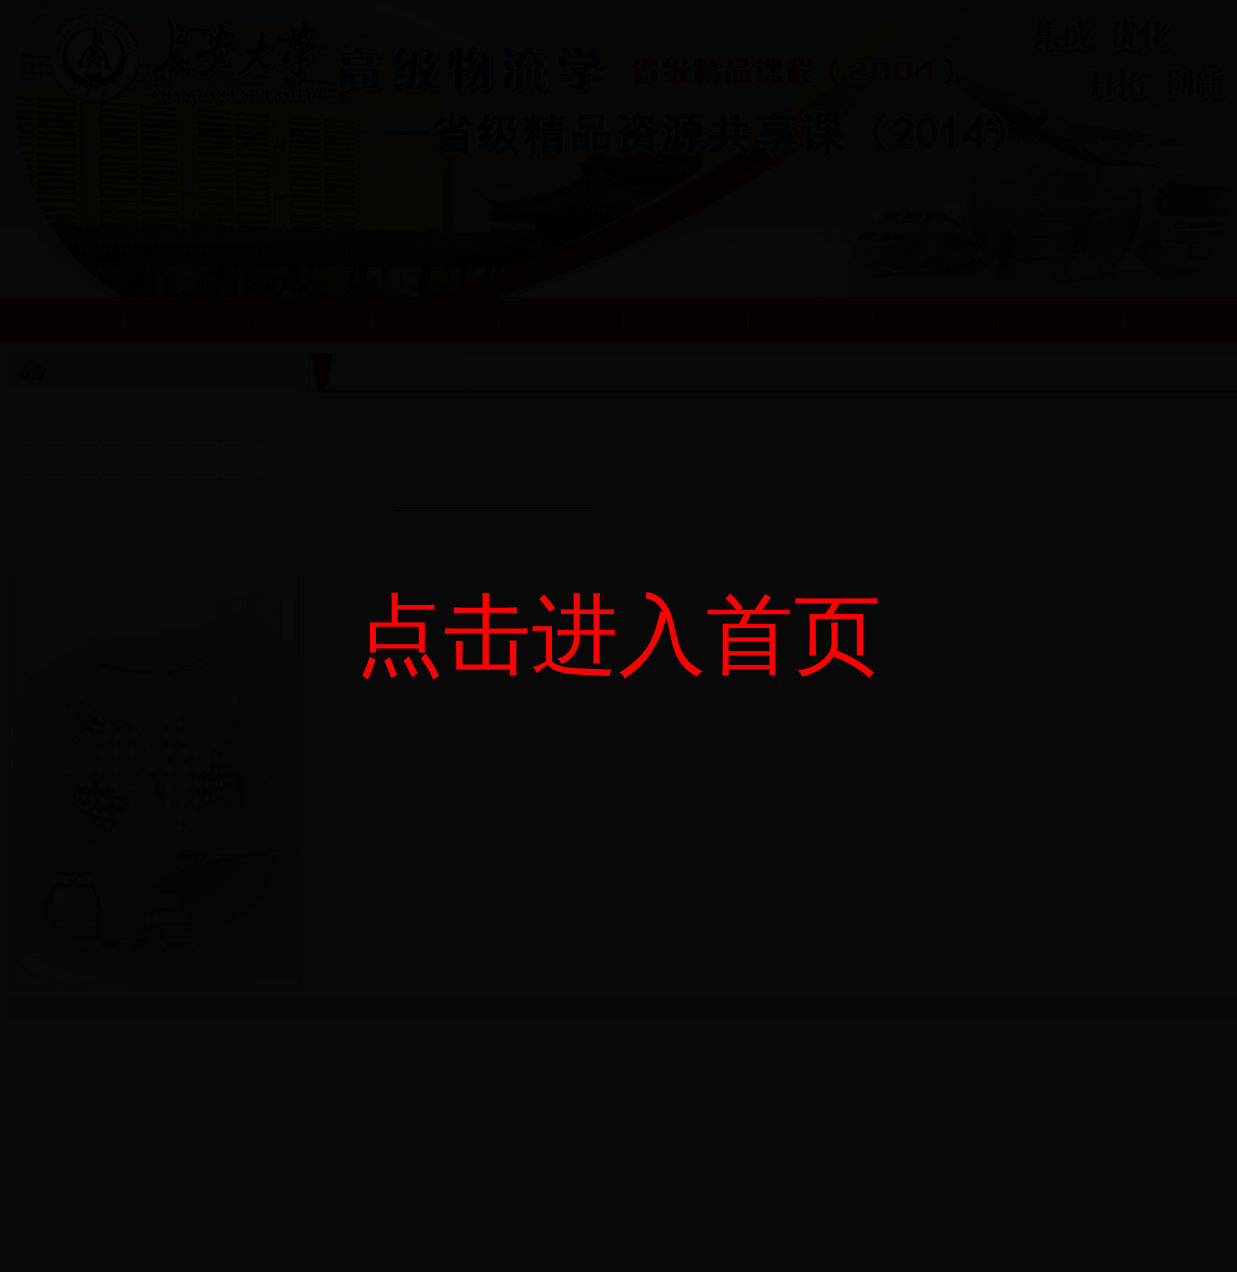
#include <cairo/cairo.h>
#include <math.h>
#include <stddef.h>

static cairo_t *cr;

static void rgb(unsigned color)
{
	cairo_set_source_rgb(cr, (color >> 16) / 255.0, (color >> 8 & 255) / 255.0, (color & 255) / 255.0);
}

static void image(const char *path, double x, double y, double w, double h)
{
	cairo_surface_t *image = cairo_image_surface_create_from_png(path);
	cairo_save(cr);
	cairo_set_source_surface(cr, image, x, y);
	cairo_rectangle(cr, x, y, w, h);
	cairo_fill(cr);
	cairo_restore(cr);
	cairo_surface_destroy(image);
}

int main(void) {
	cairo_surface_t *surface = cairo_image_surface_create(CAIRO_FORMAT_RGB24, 1237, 1272);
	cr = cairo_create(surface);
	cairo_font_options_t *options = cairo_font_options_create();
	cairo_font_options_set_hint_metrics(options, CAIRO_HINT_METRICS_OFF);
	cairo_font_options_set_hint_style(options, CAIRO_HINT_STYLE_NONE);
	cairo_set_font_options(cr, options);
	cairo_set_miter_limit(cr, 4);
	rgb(0x080808);
	cairo_paint(cr);
	image("img/2.png", 0, 297, 1237, 46);
	image("img/1.png", 0, 0, 1237, 298);
	image("img/3.png", 121, 306, 4, 26);
	image("img/3.png", 246, 306, 4, 26);
	image("img/3.png", 371, 306, 4, 26);
	image("img/3.png", 496, 306, 4, 26);
	image("img/3.png", 621, 306, 4, 26);
	image("img/3.png", 746, 306, 4, 26);
	image("img/3.png", 871, 306, 4, 26);
	image("img/3.png", 996, 306, 4, 26);
	image("img/3.png", 1121, 306, 4, 26);
	image("img/4.png", 9, 352, 291, 38);
	cairo_new_path(cr);
	cairo_move_to(cr, 22.5, 440.5);
	cairo_line_to(cr, 260, 440.5);
	rgb(0x050505);
	cairo_set_line_width(cr, 1.2);
	cairo_set_dash(cr, (double[]){3.75, 2.56}, 2, 0);
	cairo_stroke(cr);
	cairo_new_path(cr);
	cairo_move_to(cr, 22.5, 479.5);
	cairo_line_to(cr, 260, 479.5);
	cairo_stroke(cr);
	image("img/5.png", 9, 570, 291, 420);
	image("img/6.png", 308, 352, 929, 43);
	rgb(0x010205);
	cairo_rectangle(cr, 395, 510, 198, 1);
	cairo_fill(cr);
	image("img/7.png", 8, 997, 1229, 25);
	cairo_select_font_face(cr, "WenQuanYi Zen Hei Medium", CAIRO_FONT_SLANT_NORMAL, CAIRO_FONT_WEIGHT_NORMAL);
	cairo_set_font_size(cr, 87.5);
	rgb(0xff0000);
	cairo_move_to(cr, 356, 665);
	cairo_show_text(cr, "点击进入首页");
	cairo_surface_write_to_png(surface, "page.png");
	cairo_font_options_destroy(options);
	cairo_destroy(cr);
	cairo_surface_destroy(surface);
	return 0;
}
